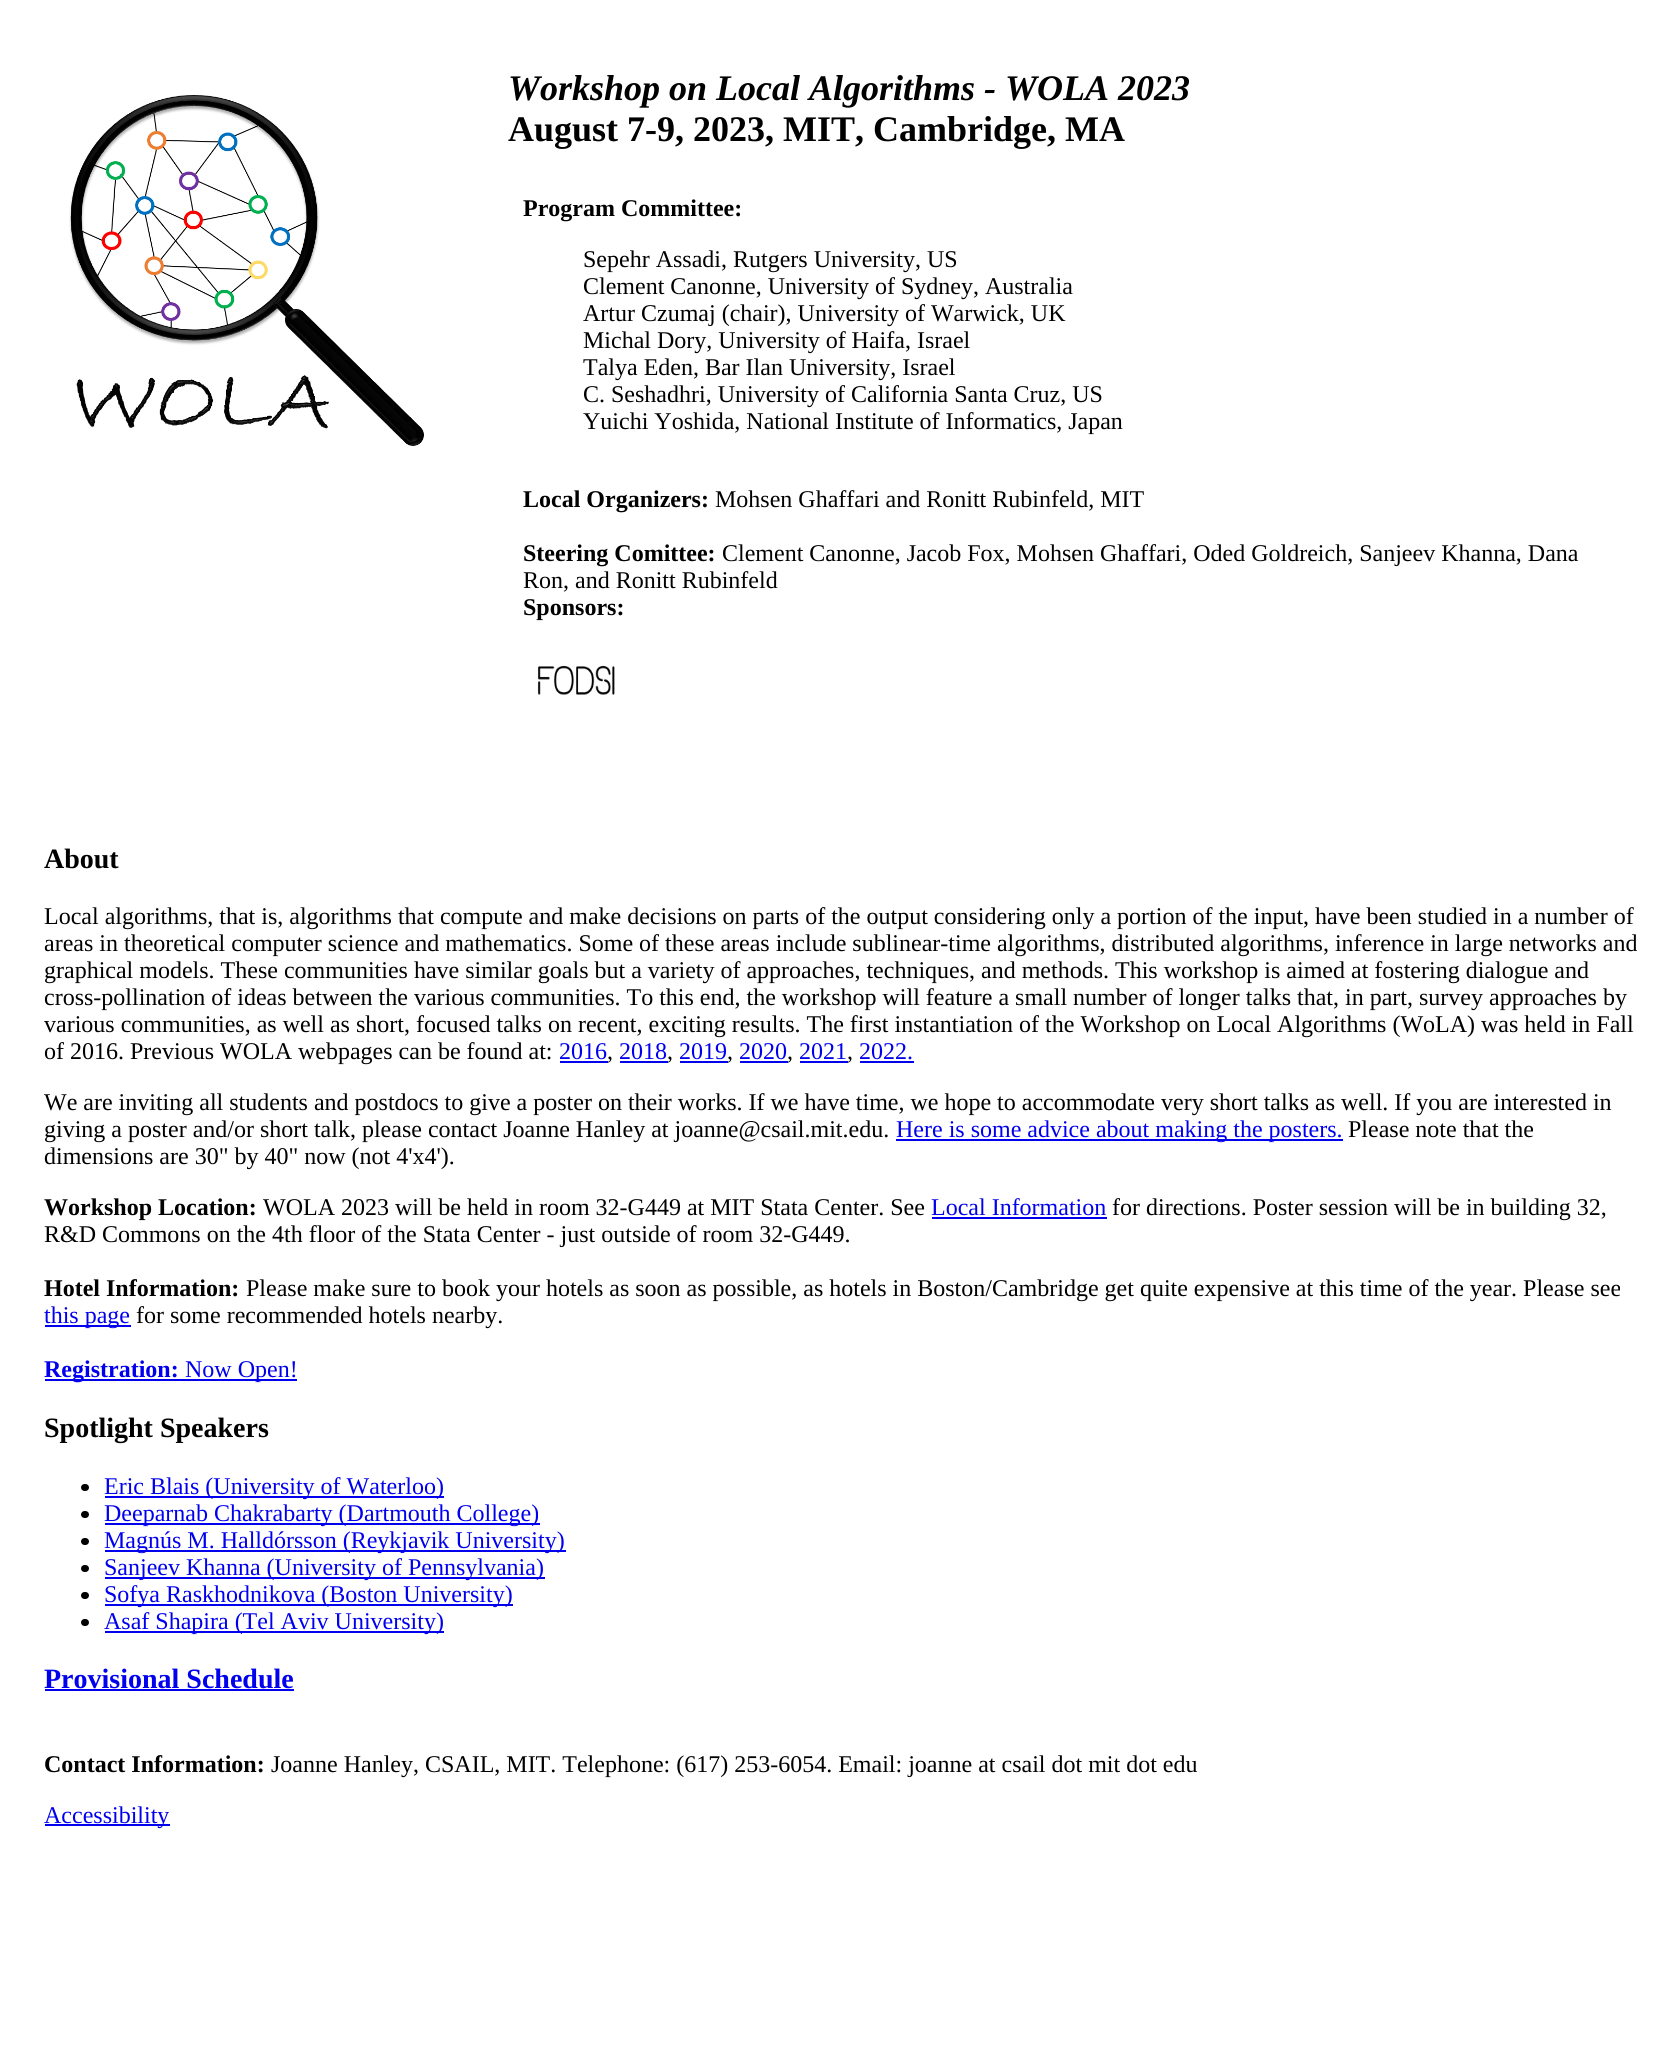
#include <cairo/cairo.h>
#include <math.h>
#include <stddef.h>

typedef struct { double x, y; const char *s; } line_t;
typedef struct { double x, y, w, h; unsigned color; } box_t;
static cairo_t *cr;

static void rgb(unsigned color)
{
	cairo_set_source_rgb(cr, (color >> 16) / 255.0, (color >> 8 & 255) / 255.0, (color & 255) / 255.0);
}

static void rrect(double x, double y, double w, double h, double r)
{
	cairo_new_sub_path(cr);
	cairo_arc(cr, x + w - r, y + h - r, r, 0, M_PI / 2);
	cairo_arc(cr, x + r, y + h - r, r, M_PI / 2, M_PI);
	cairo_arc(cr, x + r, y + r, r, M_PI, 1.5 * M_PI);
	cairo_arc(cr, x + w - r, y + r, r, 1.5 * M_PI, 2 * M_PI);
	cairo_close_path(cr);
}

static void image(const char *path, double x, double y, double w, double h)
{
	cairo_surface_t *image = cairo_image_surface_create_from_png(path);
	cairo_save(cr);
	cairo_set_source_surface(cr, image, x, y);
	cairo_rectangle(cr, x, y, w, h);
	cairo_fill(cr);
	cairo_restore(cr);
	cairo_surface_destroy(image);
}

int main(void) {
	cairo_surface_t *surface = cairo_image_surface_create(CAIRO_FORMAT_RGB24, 1653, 2069);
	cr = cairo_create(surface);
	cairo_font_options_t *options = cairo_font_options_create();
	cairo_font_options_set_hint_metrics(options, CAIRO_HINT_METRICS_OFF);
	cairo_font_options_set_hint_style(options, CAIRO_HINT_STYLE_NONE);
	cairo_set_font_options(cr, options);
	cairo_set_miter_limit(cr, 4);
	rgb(0xffffff);
	cairo_paint(cr);
	image("img/1.png", 69, 95, 355, 351);
	image("img/2.png", 537, 665, 78, 30);
	{
		static const box_t items[] = {
			{560, 1061, 48, 2, 0x0000ee},
			{620, 1061, 48, 2, 0x0000ee},
			{680, 1061, 48, 2, 0x0000ee},
			{740, 1061, 48, 2, 0x0000ee},
			{800, 1061, 48, 2, 0x0000ee},
			{860, 1061, 54, 2, 0x0000ee},
			{896, 1139, 447, 2, 0x0000ee},
			{932, 1217, 175, 2, 0x0000ee},
			{45, 1325, 86, 2, 0x0000ee},
			{45, 1379, 252, 2, 0x0000ee},
		};
		for (size_t i = 0; i < sizeof items / sizeof *items; i++) {
			rgb(items[i].color);
			cairo_rectangle(cr, items[i].x, items[i].y, items[i].w, items[i].h);
			cairo_fill(cr);
		}
	}
	rgb(0x000000);
	rrect(81, 1484, 8, 7, 3.5);
	cairo_fill(cr);
	rgb(0x0000ee);
	cairo_rectangle(cr, 105, 1496, 339, 2);
	cairo_fill(cr);
	rgb(0x000000);
	rrect(81, 1511, 8, 7, 3.5);
	cairo_fill(cr);
	rgb(0x0000ee);
	cairo_rectangle(cr, 105, 1523, 435, 2);
	cairo_fill(cr);
	rgb(0x000000);
	rrect(81, 1538, 8, 7, 3.5);
	cairo_fill(cr);
	rgb(0x0000ee);
	cairo_rectangle(cr, 105, 1550, 461, 2);
	cairo_fill(cr);
	rgb(0x000000);
	rrect(81, 1565, 8, 7, 3.5);
	cairo_fill(cr);
	rgb(0x0000ee);
	cairo_rectangle(cr, 105, 1577, 440, 2);
	cairo_fill(cr);
	rgb(0x000000);
	rrect(81, 1592, 8, 7, 3.5);
	cairo_fill(cr);
	rgb(0x0000ee);
	cairo_rectangle(cr, 105, 1604, 408, 2);
	cairo_fill(cr);
	rgb(0x000000);
	rrect(81, 1619, 8, 7, 3.5);
	cairo_fill(cr);
	{
		static const box_t items[] = {
			{105, 1631, 339, 2, 0x0000ee},
			{45, 1689, 249, 2, 0x0000ee},
			{45, 1824, 125, 2, 0x0000ee},
		};
		for (size_t i = 0; i < sizeof items / sizeof *items; i++) {
			rgb(items[i].color);
			cairo_rectangle(cr, items[i].x, items[i].y, items[i].w, items[i].h);
			cairo_fill(cr);
		}
	}
	cairo_select_font_face(cr, "Liberation Serif", CAIRO_FONT_SLANT_ITALIC, CAIRO_FONT_WEIGHT_BOLD);
	cairo_set_font_size(cr, 36);
	rgb(0x000000);
	cairo_move_to(cr, 508, 100);
	cairo_show_text(cr, "Workshop on Local Algorithms - WOLA 2023");
	cairo_select_font_face(cr, "Liberation Serif", CAIRO_FONT_SLANT_NORMAL, CAIRO_FONT_WEIGHT_BOLD);
	cairo_move_to(cr, 508, 141);
	cairo_show_text(cr, "August 7-9, 2023, MIT, Cambridge, MA");
	cairo_set_font_size(cr, 24);
	cairo_move_to(cr, 523, 216);
	cairo_show_text(cr, "Program Committee:");
	cairo_select_font_face(cr, "Liberation Serif", CAIRO_FONT_SLANT_NORMAL, CAIRO_FONT_WEIGHT_NORMAL);
	{
		static const line_t items[] = {
			{583, 267, "Sepehr Assadi, Rutgers University, US"},
			{583, 294, "Clement Canonne, University of Sydney, Australia"},
			{583, 321, "Artur Czumaj (chair), University of Warwick, UK"},
			{583, 348, "Michal Dory, University of Haifa, Israel"},
			{583, 375, "Talya Eden, Bar Ilan University, Israel"},
			{583, 402, "C. Seshadhri, University of California Santa Cruz, US"},
			{583, 429, "Yuichi Yoshida, National Institute of Informatics, Japan"},
		};
		for (size_t i = 0; i < sizeof items / sizeof *items; i++) {
			cairo_move_to(cr, items[i].x, items[i].y);
			cairo_show_text(cr, items[i].s);
		}
	}
	cairo_select_font_face(cr, "Liberation Serif", CAIRO_FONT_SLANT_NORMAL, CAIRO_FONT_WEIGHT_BOLD);
	cairo_move_to(cr, 523, 507);
	cairo_show_text(cr, "Local Organizers:");
	cairo_select_font_face(cr, "Liberation Serif", CAIRO_FONT_SLANT_NORMAL, CAIRO_FONT_WEIGHT_NORMAL);
	cairo_move_to(cr, 715, 507);
	cairo_show_text(cr, "Mohsen Ghaffari and Ronitt Rubinfeld, MIT");
	cairo_select_font_face(cr, "Liberation Serif", CAIRO_FONT_SLANT_NORMAL, CAIRO_FONT_WEIGHT_BOLD);
	cairo_move_to(cr, 523, 561);
	cairo_show_text(cr, "Steering Comittee:");
	cairo_select_font_face(cr, "Liberation Serif", CAIRO_FONT_SLANT_NORMAL, CAIRO_FONT_WEIGHT_NORMAL);
	cairo_move_to(cr, 722, 561);
	cairo_show_text(cr, "Clement Canonne, Jacob Fox, Mohsen Ghaffari, Oded Goldreich, Sanjeev Khanna, Dana");
	cairo_move_to(cr, 523, 588);
	cairo_show_text(cr, "Ron, and Ronitt Rubinfeld");
	cairo_select_font_face(cr, "Liberation Serif", CAIRO_FONT_SLANT_NORMAL, CAIRO_FONT_WEIGHT_BOLD);
	cairo_move_to(cr, 523, 615);
	cairo_show_text(cr, "Sponsors:");
	cairo_set_font_size(cr, 28);
	cairo_move_to(cr, 44, 868);
	cairo_show_text(cr, "About");
	cairo_select_font_face(cr, "Liberation Serif", CAIRO_FONT_SLANT_NORMAL, CAIRO_FONT_WEIGHT_NORMAL);
	cairo_set_font_size(cr, 24);
	{
		static const line_t items[] = {
			{44, 924, "Local algorithms, that is, algorithms that compute and make decisions on parts of the output considering only a portion of the input, have been studied in a number of"},
			{44, 951, "areas in theoretical computer science and mathematics. Some of these areas include sublinear-time algorithms, distributed algorithms, inference in large networks and"},
			{44, 978, "graphical models. These communities have similar goals but a variety of approaches, techniques, and methods. This workshop is aimed at fostering dialogue and"},
			{44, 1005, "cross-pollination of ideas between the various communities. To this end, the workshop will feature a small number of longer talks that, in part, survey approaches by"},
			{44, 1032, "various communities, as well as short, focused talks on recent, exciting results. The first instantiation of the Workshop on Local Algorithms (WoLA) was held in Fall"},
			{44, 1059, "of 2016. Previous WOLA webpages can be found at:"},
		};
		for (size_t i = 0; i < sizeof items / sizeof *items; i++) {
			cairo_move_to(cr, items[i].x, items[i].y);
			cairo_show_text(cr, items[i].s);
		}
	}
	rgb(0x0000ee);
	cairo_move_to(cr, 559, 1059);
	cairo_show_text(cr, "2016");
	rgb(0x000000);
	cairo_move_to(cr, 607, 1059);
	cairo_show_text(cr, ",");
	rgb(0x0000ee);
	cairo_move_to(cr, 619, 1059);
	cairo_show_text(cr, "2018");
	rgb(0x000000);
	cairo_move_to(cr, 667, 1059);
	cairo_show_text(cr, ",");
	rgb(0x0000ee);
	cairo_move_to(cr, 679, 1059);
	cairo_show_text(cr, "2019");
	rgb(0x000000);
	cairo_move_to(cr, 727, 1059);
	cairo_show_text(cr, ",");
	rgb(0x0000ee);
	cairo_move_to(cr, 739, 1059);
	cairo_show_text(cr, "2020");
	rgb(0x000000);
	cairo_move_to(cr, 787, 1059);
	cairo_show_text(cr, ",");
	rgb(0x0000ee);
	cairo_move_to(cr, 799, 1059);
	cairo_show_text(cr, "2021");
	rgb(0x000000);
	cairo_move_to(cr, 847, 1059);
	cairo_show_text(cr, ",");
	rgb(0x0000ee);
	cairo_move_to(cr, 859, 1059);
	cairo_show_text(cr, "2022.");
	rgb(0x000000);
	cairo_move_to(cr, 44, 1110);
	cairo_show_text(cr, "We are inviting all students and postdocs to give a poster on their works. If we have time, we hope to accommodate very short talks as well. If you are interested in");
	cairo_move_to(cr, 44, 1137);
	cairo_show_text(cr, "giving a poster and/or short talk, please contact Joanne Hanley at joanne@csail.mit.edu.");
	rgb(0x0000ee);
	cairo_move_to(cr, 896, 1137);
	cairo_show_text(cr, "Here is some advice about making the posters.");
	rgb(0x000000);
	cairo_move_to(cr, 1348, 1137);
	cairo_show_text(cr, "Please note that the");
	cairo_move_to(cr, 44, 1164);
	cairo_show_text(cr, "dimensions are 30\" by 40\" now (not 4'x4').");
	cairo_select_font_face(cr, "Liberation Serif", CAIRO_FONT_SLANT_NORMAL, CAIRO_FONT_WEIGHT_BOLD);
	cairo_move_to(cr, 44, 1215);
	cairo_show_text(cr, "Workshop Location:");
	cairo_select_font_face(cr, "Liberation Serif", CAIRO_FONT_SLANT_NORMAL, CAIRO_FONT_WEIGHT_NORMAL);
	cairo_move_to(cr, 263, 1215);
	cairo_show_text(cr, "WOLA 2023 will be held in room 32-G449 at MIT Stata Center. See");
	rgb(0x0000ee);
	cairo_move_to(cr, 931, 1215);
	cairo_show_text(cr, "Local Information");
	rgb(0x000000);
	cairo_move_to(cr, 1112, 1215);
	cairo_show_text(cr, "for directions. Poster session will be in building 32,");
	cairo_move_to(cr, 44, 1242);
	cairo_show_text(cr, "R&D Commons on the 4th floor of the Stata Center - just outside of room 32-G449.");
	cairo_select_font_face(cr, "Liberation Serif", CAIRO_FONT_SLANT_NORMAL, CAIRO_FONT_WEIGHT_BOLD);
	cairo_move_to(cr, 44, 1296);
	cairo_show_text(cr, "Hotel Information:");
	cairo_select_font_face(cr, "Liberation Serif", CAIRO_FONT_SLANT_NORMAL, CAIRO_FONT_WEIGHT_NORMAL);
	cairo_move_to(cr, 246, 1296);
	cairo_show_text(cr, "Please make sure to book your hotels as soon as possible, as hotels in Boston/Cambridge get quite expensive at this time of the year. Please see");
	rgb(0x0000ee);
	cairo_move_to(cr, 44, 1323);
	cairo_show_text(cr, "this page");
	rgb(0x000000);
	cairo_move_to(cr, 136, 1323);
	cairo_show_text(cr, "for some recommended hotels nearby.");
	cairo_select_font_face(cr, "Liberation Serif", CAIRO_FONT_SLANT_NORMAL, CAIRO_FONT_WEIGHT_BOLD);
	rgb(0x0000ee);
	cairo_move_to(cr, 44, 1377);
	cairo_show_text(cr, "Registration:");
	cairo_select_font_face(cr, "Liberation Serif", CAIRO_FONT_SLANT_NORMAL, CAIRO_FONT_WEIGHT_NORMAL);
	cairo_move_to(cr, 185, 1377);
	cairo_show_text(cr, "Now Open!");
	cairo_select_font_face(cr, "Liberation Serif", CAIRO_FONT_SLANT_NORMAL, CAIRO_FONT_WEIGHT_BOLD);
	cairo_set_font_size(cr, 28);
	rgb(0x000000);
	cairo_move_to(cr, 44, 1437);
	cairo_show_text(cr, "Spotlight Speakers");
	cairo_select_font_face(cr, "Liberation Serif", CAIRO_FONT_SLANT_NORMAL, CAIRO_FONT_WEIGHT_NORMAL);
	cairo_set_font_size(cr, 24);
	rgb(0x0000ee);
	{
		static const line_t items[] = {
			{104, 1494, "Eric Blais (University of Waterloo)"},
			{104, 1521, "Deeparnab Chakrabarty (Dartmouth College)"},
			{104, 1548, "Magnús M. Halldórsson (Reykjavik University)"},
			{104, 1575, "Sanjeev Khanna (University of Pennsylvania)"},
			{104, 1602, "Sofya Raskhodnikova (Boston University)"},
			{104, 1629, "Asaf Shapira (Tel Aviv University)"},
		};
		for (size_t i = 0; i < sizeof items / sizeof *items; i++) {
			cairo_move_to(cr, items[i].x, items[i].y);
			cairo_show_text(cr, items[i].s);
		}
	}
	cairo_select_font_face(cr, "Liberation Serif", CAIRO_FONT_SLANT_NORMAL, CAIRO_FONT_WEIGHT_BOLD);
	cairo_set_font_size(cr, 28);
	cairo_move_to(cr, 44, 1688);
	cairo_show_text(cr, "Provisional Schedule");
	cairo_select_font_face(cr, "Liberation Serif", CAIRO_FONT_SLANT_NORMAL, CAIRO_FONT_WEIGHT_NORMAL);
	cairo_set_font_size(cr, 24);
	rgb(0x000000);
	cairo_move_to(cr, 271, 1772);
	cairo_show_text(cr, "Joanne Hanley, CSAIL, MIT. Telephone: (617) 253-6054. Email: joanne at csail dot mit dot edu");
	rgb(0x0000ee);
	cairo_move_to(cr, 44, 1823);
	cairo_show_text(cr, "Accessibility");
	cairo_select_font_face(cr, "Liberation Serif", CAIRO_FONT_SLANT_NORMAL, CAIRO_FONT_WEIGHT_BOLD);
	rgb(0x000000);
	cairo_move_to(cr, 44, 1772);
	cairo_show_text(cr, "Contact Information:");
	cairo_surface_write_to_png(surface, "page.png");
	cairo_font_options_destroy(options);
	cairo_destroy(cr);
	cairo_surface_destroy(surface);
	return 0;
}
